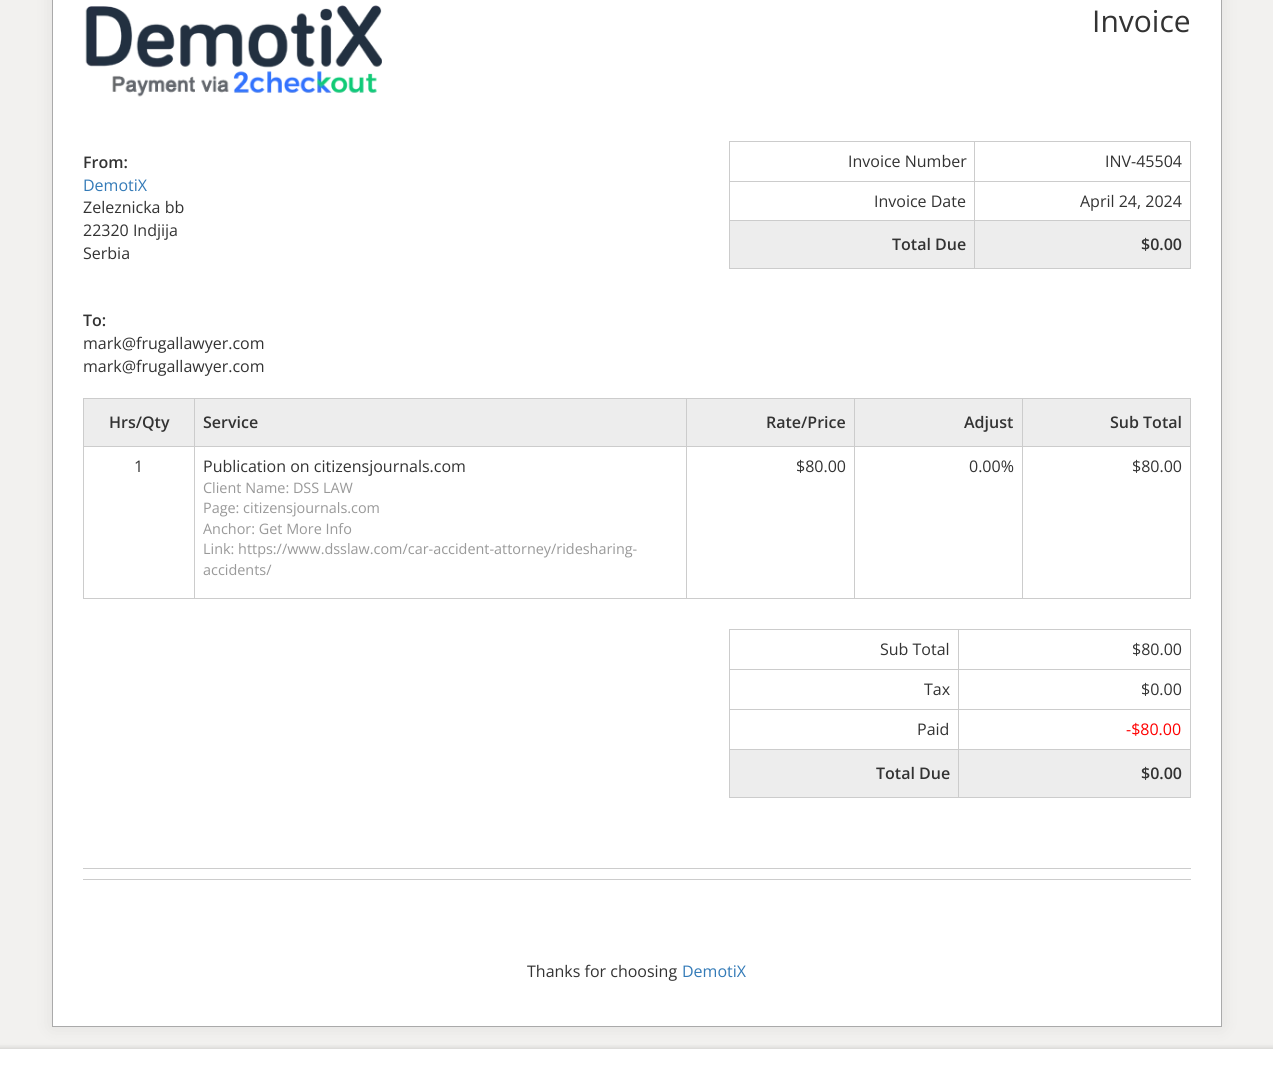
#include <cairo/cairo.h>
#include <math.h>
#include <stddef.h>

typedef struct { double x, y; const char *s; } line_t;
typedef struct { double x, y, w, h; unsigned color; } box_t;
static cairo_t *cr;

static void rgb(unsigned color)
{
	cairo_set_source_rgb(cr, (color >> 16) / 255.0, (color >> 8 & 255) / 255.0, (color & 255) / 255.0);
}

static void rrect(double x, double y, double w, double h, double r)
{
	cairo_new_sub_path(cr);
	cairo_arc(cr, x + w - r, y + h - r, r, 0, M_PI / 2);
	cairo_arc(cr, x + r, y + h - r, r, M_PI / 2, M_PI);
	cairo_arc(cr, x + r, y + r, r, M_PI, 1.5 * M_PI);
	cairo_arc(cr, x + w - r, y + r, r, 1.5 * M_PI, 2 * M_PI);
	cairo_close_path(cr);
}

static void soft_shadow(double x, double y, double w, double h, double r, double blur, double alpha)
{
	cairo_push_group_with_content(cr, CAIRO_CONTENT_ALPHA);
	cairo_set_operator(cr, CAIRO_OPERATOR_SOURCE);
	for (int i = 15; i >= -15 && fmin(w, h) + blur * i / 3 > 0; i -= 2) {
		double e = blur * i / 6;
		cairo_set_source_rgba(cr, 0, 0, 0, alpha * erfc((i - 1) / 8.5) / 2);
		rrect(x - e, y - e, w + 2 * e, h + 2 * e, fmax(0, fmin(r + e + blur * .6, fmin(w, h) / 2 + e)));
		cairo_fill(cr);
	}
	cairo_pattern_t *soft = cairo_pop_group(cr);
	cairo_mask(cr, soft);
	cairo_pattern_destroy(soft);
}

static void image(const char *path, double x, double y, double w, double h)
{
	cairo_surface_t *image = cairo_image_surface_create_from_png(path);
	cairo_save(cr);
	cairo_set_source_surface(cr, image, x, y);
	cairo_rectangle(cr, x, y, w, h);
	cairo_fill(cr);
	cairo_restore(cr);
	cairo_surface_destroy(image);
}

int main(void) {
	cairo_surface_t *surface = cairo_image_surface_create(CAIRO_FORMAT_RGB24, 1273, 1076);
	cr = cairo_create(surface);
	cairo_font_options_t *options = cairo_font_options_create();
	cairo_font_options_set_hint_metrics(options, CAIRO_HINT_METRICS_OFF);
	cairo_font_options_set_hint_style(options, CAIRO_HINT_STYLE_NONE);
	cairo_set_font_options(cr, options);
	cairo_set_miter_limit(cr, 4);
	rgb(0xf2f1ef);
	cairo_paint(cr);
	rgb(0x000000);
	soft_shadow(52, -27, 1170, 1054, 0, 10, 0.07);
	rgb(0xffffff);
	cairo_rectangle(cr, 52.5, -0.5, 1169, 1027);
	cairo_fill_preserve(cr);
	rgb(0xaaaaaa);
	cairo_set_line_width(cr, 1);
	cairo_stroke(cr);
	image("img/1.png", 85, 5, 297, 92);
	{
		static const box_t items[] = {
			{729, 141, 462, 1, 0xcccccc},
			{1190, 141, 1, 128, 0xcccccc},
			{729, 268, 462, 1, 0xcccccc},
			{729, 141, 1, 128, 0xcccccc},
			{974, 181, 217, 1, 0xcccccc},
			{974, 220, 217, 1, 0xcccccc},
			{974, 220, 1, 49, 0xcccccc},
			{729, 220, 246, 1, 0xcccccc},
			{974, 181, 1, 40, 0xcccccc},
			{729, 181, 246, 1, 0xcccccc},
			{974, 141, 1, 41, 0xcccccc},
			{730, 221, 244, 47, 0xededed},
			{975, 221, 215, 47, 0xededed},
			{83, 398, 1108, 1, 0xcccccc},
			{1190, 398, 1, 201, 0xcccccc},
			{83, 598, 1108, 1, 0xcccccc},
			{83, 398, 1, 201, 0xcccccc},
			{84, 399, 110, 47, 0xededed},
			{195, 399, 491, 47, 0xededed},
			{1022, 446, 169, 1, 0xcccccc},
			{1022, 446, 1, 153, 0xcccccc},
			{854, 446, 169, 1, 0xcccccc},
			{854, 446, 1, 153, 0xcccccc},
			{686, 446, 169, 1, 0xcccccc},
			{686, 446, 1, 153, 0xcccccc},
			{194, 446, 493, 1, 0xcccccc},
			{194, 446, 1, 153, 0xcccccc},
			{83, 446, 112, 1, 0xcccccc},
			{194, 398, 1, 49, 0xcccccc},
			{687, 399, 167, 47, 0xededed},
			{686, 398, 1, 49, 0xcccccc},
			{855, 399, 167, 47, 0xededed},
			{854, 398, 1, 49, 0xcccccc},
			{1023, 399, 167, 47, 0xededed},
			{1022, 398, 1, 49, 0xcccccc},
			{729, 629, 462, 1, 0xcccccc},
			{1190, 629, 1, 169, 0xcccccc},
			{729, 797, 462, 1, 0xcccccc},
			{729, 629, 1, 169, 0xcccccc},
			{958, 669, 233, 1, 0xcccccc},
			{958, 709, 233, 1, 0xcccccc},
			{958, 749, 233, 1, 0xcccccc},
			{958, 749, 1, 49, 0xcccccc},
			{729, 749, 230, 1, 0xcccccc},
			{958, 709, 1, 41, 0xcccccc},
			{729, 709, 230, 1, 0xcccccc},
			{958, 669, 1, 41, 0xcccccc},
			{729, 669, 230, 1, 0xcccccc},
			{958, 629, 1, 41, 0xcccccc},
			{730, 750, 228, 47, 0xededed},
			{959, 750, 231, 47, 0xededed},
			{83, 868, 1108, 1, 0xcccccc},
			{83, 879, 1108, 1, 0xcccccc},
		};
		for (size_t i = 0; i < sizeof items / sizeof *items; i++) {
			rgb(items[i].color);
			cairo_rectangle(cr, items[i].x, items[i].y, items[i].w, items[i].h);
			cairo_fill(cr);
		}
	}
	rgb(0x000000);
	soft_shadow(-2, 1048, 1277, 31, 0, 2.5, 0.15);
	rgb(0xffffff);
	cairo_rectangle(cr, 0, 1049, 1273, 27);
	cairo_fill(cr);
	cairo_select_font_face(cr, "Open Sans", CAIRO_FONT_SLANT_NORMAL, CAIRO_FONT_WEIGHT_NORMAL);
	cairo_set_font_size(cr, 30);
	rgb(0x333333);
	cairo_move_to(cr, 1092, 32);
	cairo_show_text(cr, "Invoice");
	cairo_select_font_face(cr, "Open Sans SemiBold", CAIRO_FONT_SLANT_NORMAL, CAIRO_FONT_WEIGHT_NORMAL);
	cairo_set_font_size(cr, 16);
	cairo_move_to(cr, 83, 168);
	cairo_show_text(cr, "From:");
	cairo_select_font_face(cr, "Open Sans", CAIRO_FONT_SLANT_NORMAL, CAIRO_FONT_WEIGHT_NORMAL);
	rgb(0x337ab7);
	cairo_move_to(cr, 83, 191);
	cairo_show_text(cr, "DemotiX");
	rgb(0x333333);
	{
		static const line_t items[] = {
			{83, 213, "Zeleznicka bb"},
			{83, 236, "22320 Indjija"},
			{83, 259, "Serbia"},
			{848, 167, "Invoice Number"},
			{1105, 167, "INV-45504"},
			{874, 207, "Invoice Date"},
			{1080, 207, "April 24, 2024"},
		};
		for (size_t i = 0; i < sizeof items / sizeof *items; i++) {
			cairo_move_to(cr, items[i].x, items[i].y);
			cairo_show_text(cr, items[i].s);
		}
	}
	cairo_select_font_face(cr, "Open Sans SemiBold", CAIRO_FONT_SLANT_NORMAL, CAIRO_FONT_WEIGHT_NORMAL);
	{
		static const line_t items[] = {
			{892, 250, "Total Due"},
			{1141, 250, "$0.00"},
			{83, 326, "To:"},
		};
		for (size_t i = 0; i < sizeof items / sizeof *items; i++) {
			cairo_move_to(cr, items[i].x, items[i].y);
			cairo_show_text(cr, items[i].s);
		}
	}
	cairo_select_font_face(cr, "Open Sans", CAIRO_FONT_SLANT_NORMAL, CAIRO_FONT_WEIGHT_NORMAL);
	cairo_move_to(cr, 83, 349);
	cairo_show_text(cr, "mark@frugallawyer.com");
	cairo_move_to(cr, 83, 372);
	cairo_show_text(cr, "mark@frugallawyer.com");
	cairo_select_font_face(cr, "Open Sans SemiBold", CAIRO_FONT_SLANT_NORMAL, CAIRO_FONT_WEIGHT_NORMAL);
	{
		static const line_t items[] = {
			{109, 428, "Hrs/Qty"},
			{203, 428, "Service"},
			{766, 428, "Rate/Price"},
			{964, 428, "Adjust"},
			{1110, 428, "Sub Total"},
		};
		for (size_t i = 0; i < sizeof items / sizeof *items; i++) {
			cairo_move_to(cr, items[i].x, items[i].y);
			cairo_show_text(cr, items[i].s);
		}
	}
	cairo_select_font_face(cr, "Open Sans", CAIRO_FONT_SLANT_NORMAL, CAIRO_FONT_WEIGHT_NORMAL);
	cairo_move_to(cr, 134, 472);
	cairo_show_text(cr, "1");
	cairo_move_to(cr, 203, 472);
	cairo_show_text(cr, "Publication on citizensjournals.com");
	cairo_set_font_size(cr, 14.4);
	rgb(0x999999);
	{
		static const line_t items[] = {
			{203, 493, "Client Name: DSS LAW"},
			{203, 513, "Page: citizensjournals.com"},
			{203, 534, "Anchor: Get More Info"},
			{203, 554, "Link: https://www.dsslaw.com/car-accident-attorney/ridesharing-"},
			{203, 575, "accidents/"},
		};
		for (size_t i = 0; i < sizeof items / sizeof *items; i++) {
			cairo_move_to(cr, items[i].x, items[i].y);
			cairo_show_text(cr, items[i].s);
		}
	}
	cairo_set_font_size(cr, 16);
	rgb(0x333333);
	{
		static const line_t items[] = {
			{796, 472, "$80.00"},
			{969, 472, "0.00%"},
			{1132, 472, "$80.00"},
			{880, 655, "Sub Total"},
			{1132, 655, "$80.00"},
			{924, 695, "Tax"},
			{1141, 695, "$0.00"},
			{917, 735, "Paid"},
		};
		for (size_t i = 0; i < sizeof items / sizeof *items; i++) {
			cairo_move_to(cr, items[i].x, items[i].y);
			cairo_show_text(cr, items[i].s);
		}
	}
	rgb(0xff0000);
	cairo_move_to(cr, 1126, 735);
	cairo_show_text(cr, "-$80.00");
	cairo_select_font_face(cr, "Open Sans SemiBold", CAIRO_FONT_SLANT_NORMAL, CAIRO_FONT_WEIGHT_NORMAL);
	rgb(0x333333);
	cairo_move_to(cr, 876, 779);
	cairo_show_text(cr, "Total Due");
	cairo_move_to(cr, 1141, 779);
	cairo_show_text(cr, "$0.00");
	cairo_select_font_face(cr, "Open Sans", CAIRO_FONT_SLANT_NORMAL, CAIRO_FONT_WEIGHT_NORMAL);
	cairo_move_to(cr, 527, 977);
	cairo_show_text(cr, "Thanks for choosing");
	rgb(0x337ab7);
	cairo_move_to(cr, 682, 977);
	cairo_show_text(cr, "DemotiX");
	cairo_surface_write_to_png(surface, "page.png");
	cairo_font_options_destroy(options);
	cairo_destroy(cr);
	cairo_surface_destroy(surface);
	return 0;
}
